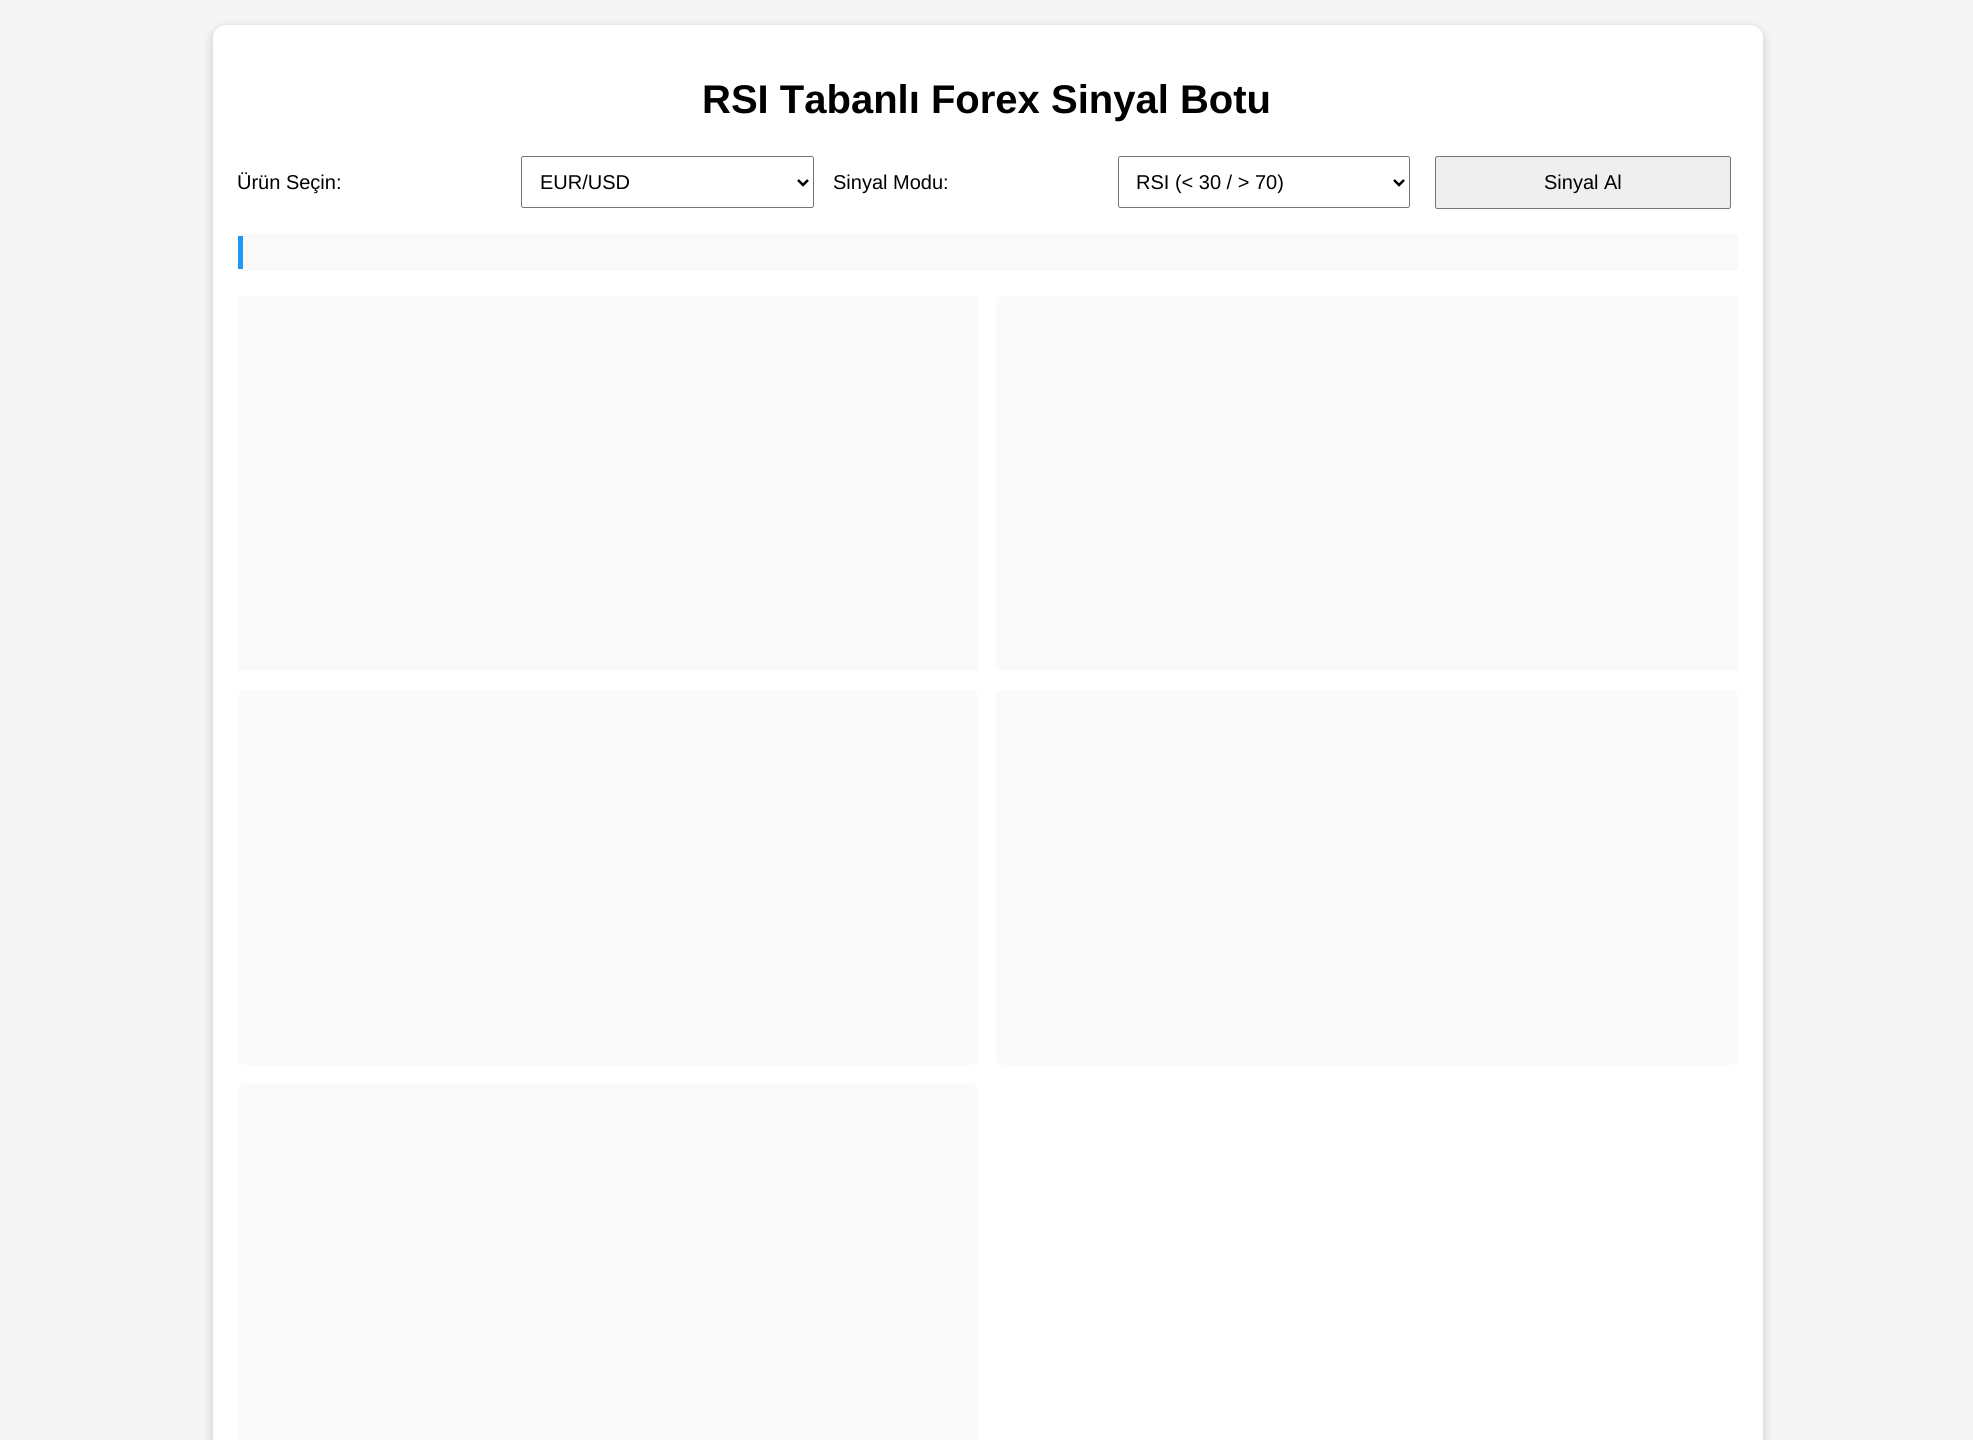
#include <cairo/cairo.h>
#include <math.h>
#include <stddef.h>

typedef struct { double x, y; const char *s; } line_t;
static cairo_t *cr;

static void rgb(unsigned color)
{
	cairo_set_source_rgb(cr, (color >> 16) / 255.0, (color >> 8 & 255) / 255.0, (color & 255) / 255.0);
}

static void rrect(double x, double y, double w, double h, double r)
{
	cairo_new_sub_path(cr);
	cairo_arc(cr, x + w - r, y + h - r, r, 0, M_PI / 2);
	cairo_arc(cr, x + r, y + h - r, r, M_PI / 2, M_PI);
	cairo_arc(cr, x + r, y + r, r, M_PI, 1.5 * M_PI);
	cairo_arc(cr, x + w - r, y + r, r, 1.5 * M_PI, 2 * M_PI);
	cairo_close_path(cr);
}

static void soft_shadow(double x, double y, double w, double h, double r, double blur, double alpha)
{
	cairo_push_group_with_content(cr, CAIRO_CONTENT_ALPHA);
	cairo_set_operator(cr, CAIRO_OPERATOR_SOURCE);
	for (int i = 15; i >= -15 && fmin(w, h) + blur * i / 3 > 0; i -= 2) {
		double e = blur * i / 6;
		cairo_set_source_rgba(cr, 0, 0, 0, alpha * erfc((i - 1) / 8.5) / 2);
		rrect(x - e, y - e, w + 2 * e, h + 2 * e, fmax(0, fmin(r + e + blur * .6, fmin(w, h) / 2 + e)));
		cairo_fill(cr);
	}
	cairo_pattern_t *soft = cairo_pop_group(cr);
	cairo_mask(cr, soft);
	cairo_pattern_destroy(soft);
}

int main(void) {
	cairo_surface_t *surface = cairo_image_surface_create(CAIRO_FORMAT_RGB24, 1973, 1440);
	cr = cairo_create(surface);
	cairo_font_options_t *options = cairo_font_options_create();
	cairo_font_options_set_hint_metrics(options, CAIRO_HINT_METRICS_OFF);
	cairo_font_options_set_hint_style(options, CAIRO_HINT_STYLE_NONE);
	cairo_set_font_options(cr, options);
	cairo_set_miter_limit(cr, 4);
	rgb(0xf5f5f5);
	cairo_paint(cr);
	rgb(0x000000);
	soft_shadow(213, 28, 1550, 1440, 13, 5, 0.2);
	rgb(0xffffff);
	rrect(213, 25, 1550, 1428, 13);
	cairo_fill(cr);
	rrect(521.5, 156.5, 292, 51, 2);
	rgb(0x767676);
	cairo_set_line_width(cr, 1);
	cairo_stroke(cr);
	cairo_new_path(cr);
	cairo_move_to(cr, 798, 180);
	cairo_line_to(cr, 803, 185);
	cairo_line_to(cr, 808, 180);
	rgb(0x000000);
	cairo_set_line_width(cr, 2.5);
	cairo_stroke(cr);
	rrect(1118.5, 156.5, 291, 51, 2);
	rgb(0x767676);
	cairo_set_line_width(cr, 1);
	cairo_stroke(cr);
	cairo_new_path(cr);
	cairo_move_to(cr, 1394, 180);
	cairo_line_to(cr, 1399, 185);
	cairo_line_to(cr, 1404, 180);
	rgb(0x000000);
	cairo_set_line_width(cr, 2.5);
	cairo_stroke(cr);
	rgb(0xefefef);
	rrect(1435.5, 156.5, 295, 52, 2);
	cairo_fill_preserve(cr);
	rgb(0x767676);
	cairo_set_line_width(cr, 1);
	cairo_stroke(cr);
	rgb(0xf9f9f9);
	rrect(238, 234, 1500, 37, 5);
	cairo_fill(cr);
	rgb(0x2196f3);
	cairo_rectangle(cr, 238, 236, 5, 33);
	cairo_fill(cr);
	rgb(0xfafafa);
	rrect(238, 296, 740, 375, 6);
	cairo_fill(cr);
	rrect(996, 296, 742, 375, 6);
	cairo_fill(cr);
	rrect(238, 690, 740, 375, 6);
	cairo_fill(cr);
	rrect(996, 690, 742, 375, 6);
	cairo_fill(cr);
	rrect(238, 1084, 740, 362, 6);
	cairo_fill(cr);
	cairo_select_font_face(cr, "Liberation Sans", CAIRO_FONT_SLANT_NORMAL, CAIRO_FONT_WEIGHT_BOLD);
	cairo_set_font_size(cr, 40);
	rgb(0x000000);
	cairo_move_to(cr, 702, 113);
	cairo_show_text(cr, "RSI Tabanlı Forex Sinyal Botu");
	cairo_select_font_face(cr, "Liberation Sans", CAIRO_FONT_SLANT_NORMAL, CAIRO_FONT_WEIGHT_NORMAL);
	cairo_set_font_size(cr, 20);
	{
		static const line_t items[] = {
			{237, 189, "Ürün Seçin:"},
			{540, 189, "EUR/USD"},
			{833, 189, "Sinyal Modu:"},
			{1136, 189, "RSI (< 30 / > 70)"},
			{1544, 189, "Sinyal Al"},
		};
		for (size_t i = 0; i < sizeof items / sizeof *items; i++) {
			cairo_move_to(cr, items[i].x, items[i].y);
			cairo_show_text(cr, items[i].s);
		}
	}
	cairo_surface_write_to_png(surface, "page.png");
	cairo_font_options_destroy(options);
	cairo_destroy(cr);
	cairo_surface_destroy(surface);
	return 0;
}
